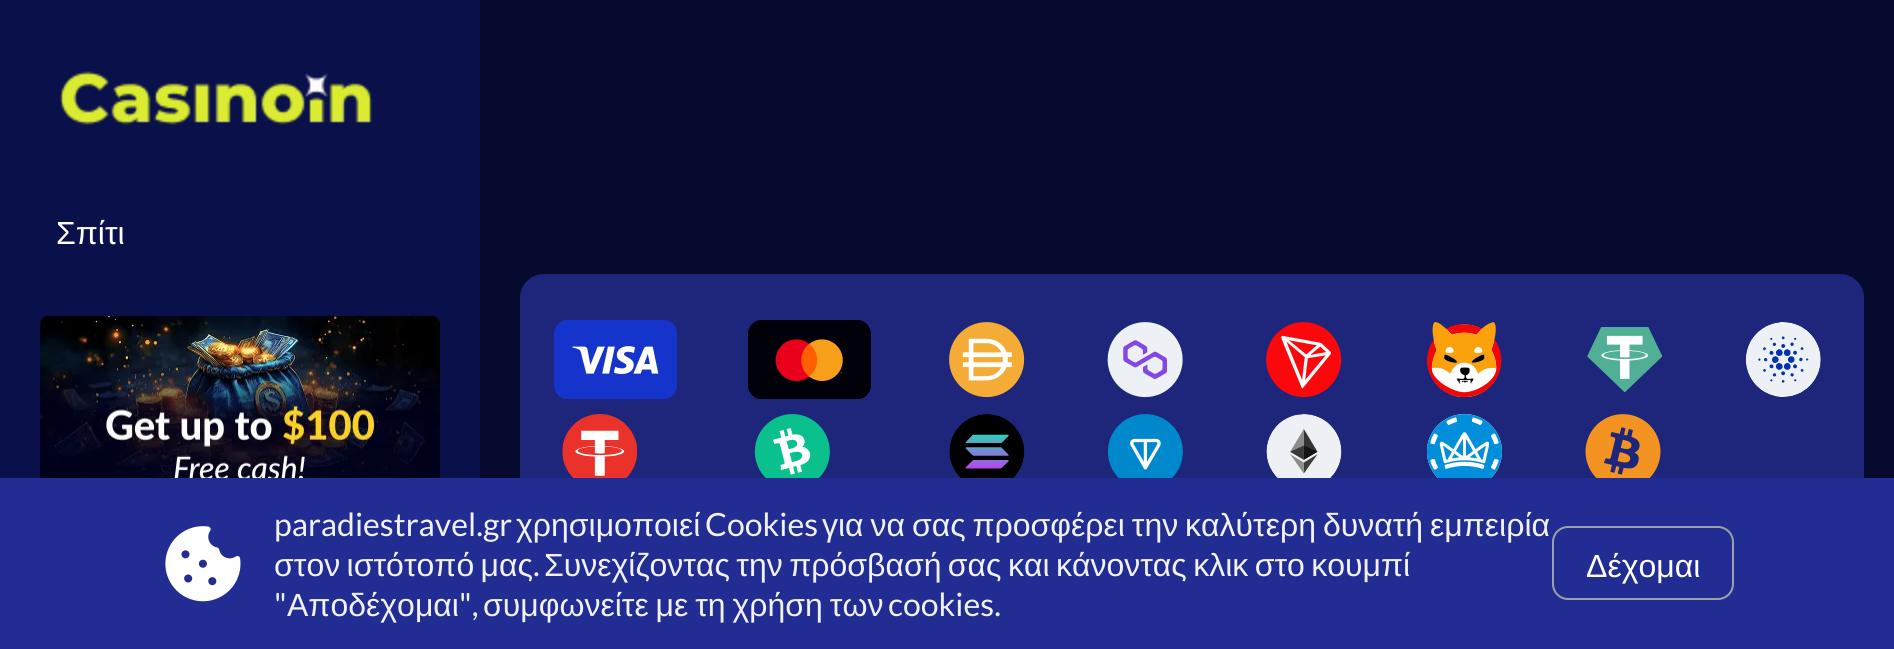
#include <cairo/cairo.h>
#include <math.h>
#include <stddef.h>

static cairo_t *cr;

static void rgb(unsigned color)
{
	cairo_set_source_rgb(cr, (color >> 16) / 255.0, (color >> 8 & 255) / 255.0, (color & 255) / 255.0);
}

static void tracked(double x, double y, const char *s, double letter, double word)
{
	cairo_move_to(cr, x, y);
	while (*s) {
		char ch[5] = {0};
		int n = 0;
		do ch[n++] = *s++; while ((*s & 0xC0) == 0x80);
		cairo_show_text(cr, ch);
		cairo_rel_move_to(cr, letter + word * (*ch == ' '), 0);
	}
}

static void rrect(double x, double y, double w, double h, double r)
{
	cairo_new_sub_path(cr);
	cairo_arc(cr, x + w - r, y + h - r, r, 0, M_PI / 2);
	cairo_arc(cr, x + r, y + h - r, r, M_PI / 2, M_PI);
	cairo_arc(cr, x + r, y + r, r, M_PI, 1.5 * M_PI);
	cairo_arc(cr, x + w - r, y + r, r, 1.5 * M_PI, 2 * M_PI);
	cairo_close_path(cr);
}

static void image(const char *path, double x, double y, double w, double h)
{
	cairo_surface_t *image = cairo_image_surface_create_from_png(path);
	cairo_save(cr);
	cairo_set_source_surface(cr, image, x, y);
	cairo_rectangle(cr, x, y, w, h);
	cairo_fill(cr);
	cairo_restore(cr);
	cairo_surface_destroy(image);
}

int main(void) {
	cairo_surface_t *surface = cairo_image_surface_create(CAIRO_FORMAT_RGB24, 1894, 649);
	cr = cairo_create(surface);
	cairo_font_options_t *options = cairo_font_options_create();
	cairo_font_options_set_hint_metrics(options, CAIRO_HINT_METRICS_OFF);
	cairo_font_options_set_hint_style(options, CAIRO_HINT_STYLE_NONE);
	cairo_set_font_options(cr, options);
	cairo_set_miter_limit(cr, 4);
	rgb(0x060a2e);
	cairo_paint(cr);
	rgb(0x0a1049);
	cairo_rectangle(cr, 0, 0, 480, 478);
	cairo_fill(cr);
	image("img/1.png", 60, 71, 313, 54);
	image("img/2.png", 40, 316, 400, 162);
	rgb(0x1d267b);
	rrect(520, 274, 1344, 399, 24);
	cairo_fill(cr);
	image("img/3.png", 554, 320, 123, 79);
	image("img/4.png", 748, 320, 123, 79);
	image("img/5.png", 949, 322, 76, 76);
	image("img/6.png", 1107, 322, 76, 76);
	image("img/7.png", 1266, 322, 76, 76);
	image("img/8.png", 1427, 322, 75, 76);
	image("img/9.png", 1587, 327, 76, 66);
	image("img/10.png", 1745, 322, 76, 75);
	image("img/11.png", 562, 414, 76, 64);
	image("img/12.png", 754, 414, 76, 64);
	image("img/13.png", 949, 414, 76, 64);
	image("img/14.png", 1107, 414, 76, 64);
	image("img/15.png", 1266, 414, 76, 64);
	image("img/16.png", 1426, 414, 76, 64);
	image("img/17.png", 1585, 414, 76, 64);
	rgb(0x222d93);
	cairo_rectangle(cr, 0, 478, 1894, 171);
	cairo_fill(cr);
	image("img/18.png", 165, 526, 76, 76);
	rrect(1553, 527, 180, 72, 15);
	rgb(0x99a1aa);
	cairo_stroke(cr);
	cairo_select_font_face(cr, "Liberation Sans", CAIRO_FONT_SLANT_NORMAL, CAIRO_FONT_WEIGHT_NORMAL);
	cairo_set_font_size(cr, 32);
	rgb(0xffffff);
	cairo_move_to(cr, 56, 244);
	cairo_show_text(cr, "Σπίτι");
	cairo_select_font_face(cr, "Lato", CAIRO_FONT_SLANT_NORMAL, CAIRO_FONT_WEIGHT_NORMAL);
	rgb(0xf2f2f6);
	cairo_move_to(cr, 274, 536);
	cairo_show_text(cr, "paradiestravel.gr");
	cairo_select_font_face(cr, "Liberation Sans", CAIRO_FONT_SLANT_NORMAL, CAIRO_FONT_WEIGHT_NORMAL);
	cairo_move_to(cr, 516, 536);
	cairo_show_text(cr, "χρησιμοποιεί");
	cairo_select_font_face(cr, "Lato", CAIRO_FONT_SLANT_NORMAL, CAIRO_FONT_WEIGHT_NORMAL);
	cairo_move_to(cr, 705, 536);
	cairo_show_text(cr, "Cookies");
	cairo_select_font_face(cr, "Liberation Sans", CAIRO_FONT_SLANT_NORMAL, CAIRO_FONT_WEIGHT_NORMAL);
	tracked(822, 536, "για να σας προσφέρει την καλύτερη δυνατή εμπειρία", 0, -2);
	tracked(274, 576, "στον ιστότοπό μας", 0, -2.5);
	cairo_select_font_face(cr, "Lato", CAIRO_FONT_SLANT_NORMAL, CAIRO_FONT_WEIGHT_NORMAL);
	cairo_move_to(cr, 533, 576);
	cairo_show_text(cr, ".");
	cairo_select_font_face(cr, "Liberation Sans", CAIRO_FONT_SLANT_NORMAL, CAIRO_FONT_WEIGHT_NORMAL);
	tracked(544, 576, "Συνεχίζοντας την πρόσβασή σας και κάνοντας κλικ στο κουμπί", 0, -2.5);
	cairo_select_font_face(cr, "Lato", CAIRO_FONT_SLANT_NORMAL, CAIRO_FONT_WEIGHT_NORMAL);
	cairo_move_to(cr, 274, 616);
	cairo_show_text(cr, "\"");
	cairo_select_font_face(cr, "Liberation Sans", CAIRO_FONT_SLANT_NORMAL, CAIRO_FONT_WEIGHT_NORMAL);
	cairo_move_to(cr, 287, 616);
	cairo_show_text(cr, "Αποδέχομαι");
	cairo_select_font_face(cr, "Lato", CAIRO_FONT_SLANT_NORMAL, CAIRO_FONT_WEIGHT_NORMAL);
	cairo_move_to(cr, 459, 616);
	cairo_show_text(cr, "\",");
	cairo_select_font_face(cr, "Liberation Sans", CAIRO_FONT_SLANT_NORMAL, CAIRO_FONT_WEIGHT_NORMAL);
	tracked(483, 616, "συμφωνείτε με τη χρήση των", 0, -2);
	cairo_select_font_face(cr, "Lato", CAIRO_FONT_SLANT_NORMAL, CAIRO_FONT_WEIGHT_NORMAL);
	cairo_move_to(cr, 888, 616);
	cairo_show_text(cr, "cookies.");
	cairo_select_font_face(cr, "Liberation Sans", CAIRO_FONT_SLANT_NORMAL, CAIRO_FONT_WEIGHT_NORMAL);
	rgb(0xffffff);
	cairo_move_to(cr, 1586, 577);
	cairo_show_text(cr, "Δέχομαι");
	cairo_surface_write_to_png(surface, "page.png");
	cairo_font_options_destroy(options);
	cairo_destroy(cr);
	cairo_surface_destroy(surface);
	return 0;
}
